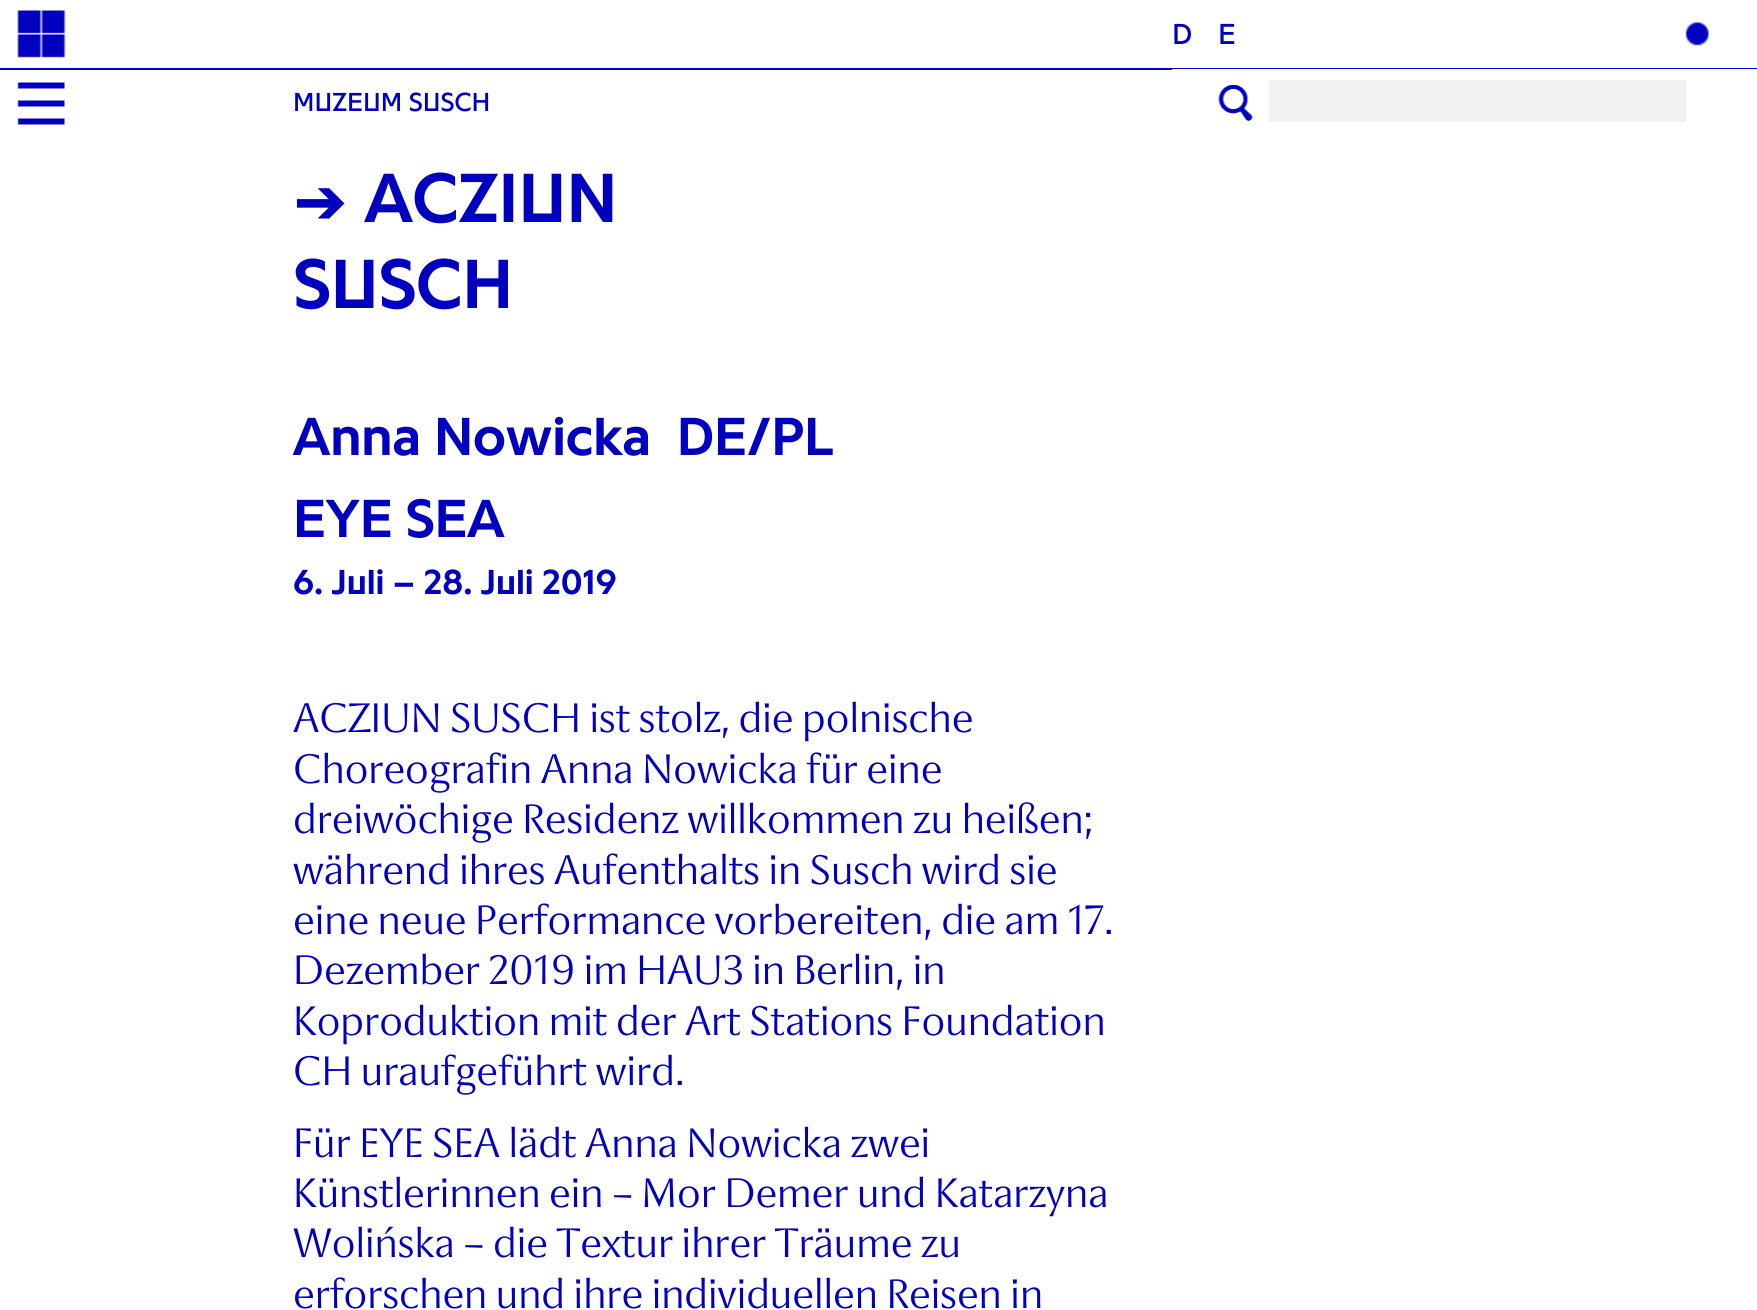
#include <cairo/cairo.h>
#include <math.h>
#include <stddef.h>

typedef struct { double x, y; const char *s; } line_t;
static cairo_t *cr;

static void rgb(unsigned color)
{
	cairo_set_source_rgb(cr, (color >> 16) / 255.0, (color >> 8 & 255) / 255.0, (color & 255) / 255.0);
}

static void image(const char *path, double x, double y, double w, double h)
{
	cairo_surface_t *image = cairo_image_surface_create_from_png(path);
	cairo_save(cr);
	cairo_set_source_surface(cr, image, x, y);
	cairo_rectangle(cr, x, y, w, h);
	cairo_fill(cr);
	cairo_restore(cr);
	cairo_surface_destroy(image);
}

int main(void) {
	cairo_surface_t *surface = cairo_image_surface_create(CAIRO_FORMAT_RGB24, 1757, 1310);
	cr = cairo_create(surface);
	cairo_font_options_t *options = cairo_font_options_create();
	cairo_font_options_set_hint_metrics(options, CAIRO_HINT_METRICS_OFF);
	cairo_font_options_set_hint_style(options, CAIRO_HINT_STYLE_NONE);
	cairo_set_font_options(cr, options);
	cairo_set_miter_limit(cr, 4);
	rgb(0xffffff);
	cairo_paint(cr);
	rgb(0x0000be);
	cairo_rectangle(cr, 0, 68, 1757, 2);
	cairo_fill(cr);
	image("img/1.png", 17, 10, 49, 48);
	image("img/2.png", 17, 82, 48, 43);
	rgb(0xffffff);
	cairo_rectangle(cr, 1172, 69, 585, 1);
	cairo_fill(cr);
	image("img/3.png", 1218, 85, 35, 36);
	rgb(0xf1f1f4);
	cairo_rectangle(cr, 1269, 80, 417, 42);
	cairo_fill(cr);
	image("img/4.png", 1685, 22, 24, 24);
	cairo_select_font_face(cr, "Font", CAIRO_FONT_SLANT_NORMAL, CAIRO_FONT_WEIGHT_NORMAL);
	cairo_set_font_size(cr, 30);
	rgb(0x0000be);
	cairo_move_to(cr, 1172, 44);
	cairo_show_text(cr, "D");
	cairo_move_to(cr, 1218, 44);
	cairo_show_text(cr, "E");
	cairo_set_font_size(cr, 27);
	cairo_move_to(cr, 293, 111);
	cairo_show_text(cr, "MUZEUM SUSCH");
	cairo_select_font_face(cr, "Font", CAIRO_FONT_SLANT_NORMAL, CAIRO_FONT_WEIGHT_BOLD);
	cairo_set_font_size(cr, 72);
	cairo_move_to(cr, 293, 222);
	cairo_show_text(cr, "→ ACZIUN");
	cairo_move_to(cr, 293, 308);
	cairo_show_text(cr, "SUSCH");
	cairo_set_font_size(cr, 55.5);
	cairo_move_to(cr, 293, 455);
	cairo_show_text(cr, "Anna Nowicka  DE/PL");
	cairo_move_to(cr, 293, 537);
	cairo_show_text(cr, "EYE SEA");
	cairo_set_font_size(cr, 36);
	cairo_move_to(cr, 293, 594);
	cairo_show_text(cr, "6. Juli – 28. Juli 2019");
	cairo_select_font_face(cr, "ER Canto", CAIRO_FONT_SLANT_NORMAL, CAIRO_FONT_WEIGHT_NORMAL);
	cairo_set_font_size(cr, 42);
	{
		static const line_t items[] = {
			{293, 732, "ACZIUN SUSCH ist stolz, die polnische"},
			{293, 783, "Choreografin Anna Nowicka für eine"},
			{293, 833, "dreiwöchige Residenz willkommen zu heißen;"},
			{293, 884, "während ihres Aufenthalts in Susch wird sie"},
			{293, 934, "eine neue Performance vorbereiten, die am 17."},
			{293, 984, "Dezember 2019 im HAU3 in Berlin, in"},
			{293, 1035, "Koproduktion mit der Art Stations Foundation"},
			{293, 1085, "CH uraufgeführt wird."},
			{293, 1157, "Für EYE SEA lädt Anna Nowicka zwei"},
			{293, 1207, "Künstlerinnen ein – Mor Demer und Katarzyna"},
			{293, 1257, "Wolińska – die Textur ihrer Träume zu"},
			{293, 1308, "erforschen und ihre individuellen Reisen in"},
		};
		for (size_t i = 0; i < sizeof items / sizeof *items; i++) {
			cairo_move_to(cr, items[i].x, items[i].y);
			cairo_show_text(cr, items[i].s);
		}
	}
	cairo_surface_write_to_png(surface, "page.png");
	cairo_font_options_destroy(options);
	cairo_destroy(cr);
	cairo_surface_destroy(surface);
	return 0;
}
